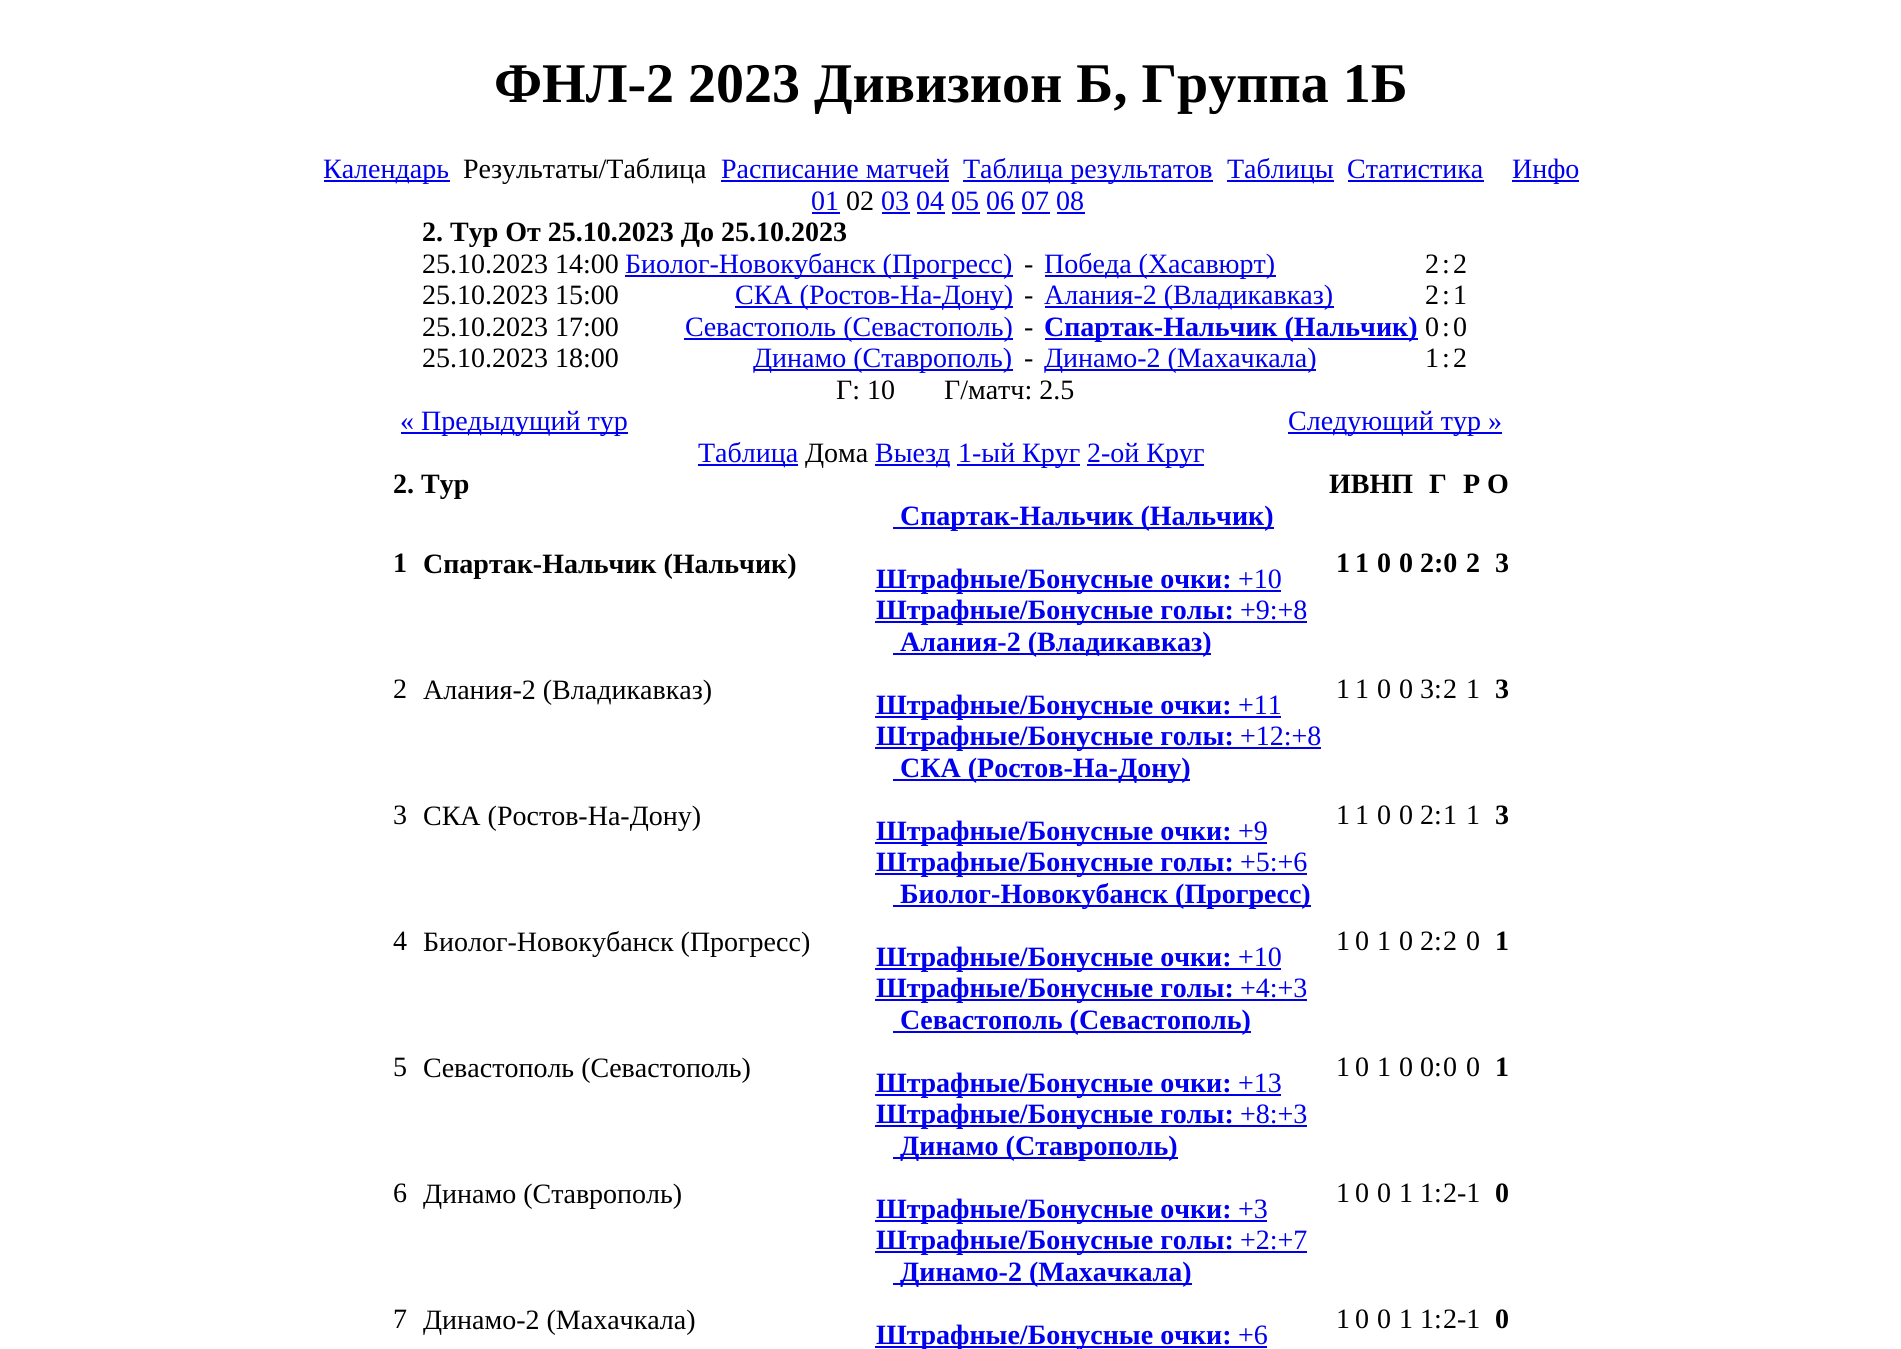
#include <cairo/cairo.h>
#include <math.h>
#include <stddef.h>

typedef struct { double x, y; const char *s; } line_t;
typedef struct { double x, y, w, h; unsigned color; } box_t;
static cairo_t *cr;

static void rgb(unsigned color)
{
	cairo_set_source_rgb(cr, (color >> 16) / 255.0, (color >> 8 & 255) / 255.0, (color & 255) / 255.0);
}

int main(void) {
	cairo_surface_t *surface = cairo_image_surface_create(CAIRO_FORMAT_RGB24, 1901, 1349);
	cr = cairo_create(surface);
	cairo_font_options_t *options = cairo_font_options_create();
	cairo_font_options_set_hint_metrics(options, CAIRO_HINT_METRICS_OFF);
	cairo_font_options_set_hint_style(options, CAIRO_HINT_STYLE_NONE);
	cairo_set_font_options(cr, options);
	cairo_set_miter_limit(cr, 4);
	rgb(0xffffff);
	cairo_paint(cr);
	{
		static const box_t items[] = {
			{324, 180, 126, 2, 0x0000ee},
			{721, 180, 228, 2, 0x0000ee},
			{963, 180, 250, 2, 0x0000ee},
			{1227, 180, 107, 2, 0x0000ee},
			{1348, 180, 136, 2, 0x0000ee},
			{1512, 180, 67, 2, 0x0000ee},
			{812, 212, 28, 2, 0x0000ee},
			{882, 212, 28, 2, 0x0000ee},
			{917, 212, 28, 2, 0x0000ee},
			{952, 212, 28, 2, 0x0000ee},
			{987, 212, 28, 2, 0x0000ee},
			{1022, 212, 28, 2, 0x0000ee},
			{1057, 212, 28, 2, 0x0000ee},
			{625, 275, 388, 2, 0x0000ee},
			{1045, 275, 231, 2, 0x0000ee},
			{735, 306, 278, 2, 0x0000ee},
			{1045, 306, 289, 2, 0x0000ee},
			{684, 338, 329, 2, 0x0000ee},
			{1045, 338, 373, 2, 0x0000ee},
			{754, 369, 259, 2, 0x0000ee},
			{1045, 369, 271, 2, 0x0000ee},
			{401, 432, 227, 2, 0x0000ee},
			{1288, 432, 214, 2, 0x0000ee},
			{698, 464, 100, 2, 0x0000ee},
			{875, 464, 75, 2, 0x0000ee},
			{957, 464, 123, 2, 0x0000ee},
			{1087, 464, 117, 2, 0x0000ee},
			{893, 527, 381, 2, 0x0000ee},
			{875, 590, 406, 2, 0x0000ee},
			{875, 621, 432, 2, 0x0000ee},
			{893, 653, 318, 2, 0x0000ee},
			{875, 716, 406, 2, 0x0000ee},
			{875, 747, 446, 2, 0x0000ee},
			{893, 779, 297, 2, 0x0000ee},
			{875, 842, 392, 2, 0x0000ee},
			{875, 873, 432, 2, 0x0000ee},
			{893, 905, 418, 2, 0x0000ee},
			{875, 968, 406, 2, 0x0000ee},
			{875, 999, 432, 2, 0x0000ee},
			{893, 1031, 358, 2, 0x0000ee},
			{875, 1094, 406, 2, 0x0000ee},
			{875, 1125, 432, 2, 0x0000ee},
			{893, 1157, 285, 2, 0x0000ee},
			{875, 1220, 392, 2, 0x0000ee},
			{875, 1251, 432, 2, 0x0000ee},
			{893, 1283, 299, 2, 0x0000ee},
			{875, 1346, 392, 2, 0x0000ee},
		};
		for (size_t i = 0; i < sizeof items / sizeof *items; i++) {
			rgb(items[i].color);
			cairo_rectangle(cr, items[i].x, items[i].y, items[i].w, items[i].h);
			cairo_fill(cr);
		}
	}
	cairo_select_font_face(cr, "Liberation Serif", CAIRO_FONT_SLANT_NORMAL, CAIRO_FONT_WEIGHT_BOLD);
	cairo_set_font_size(cr, 56);
	rgb(0x000000);
	cairo_move_to(cr, 494, 102);
	cairo_show_text(cr, "ФНЛ-2 2023 Дивизион Б, Группа 1Б");
	cairo_select_font_face(cr, "Liberation Serif", CAIRO_FONT_SLANT_NORMAL, CAIRO_FONT_WEIGHT_NORMAL);
	cairo_set_font_size(cr, 28);
	rgb(0x0000ee);
	cairo_move_to(cr, 323, 178);
	cairo_show_text(cr, "Календарь");
	rgb(0x000000);
	cairo_move_to(cr, 463, 178);
	cairo_show_text(cr, "Результаты/Таблица");
	rgb(0x0000ee);
	{
		static const line_t items[] = {
			{721, 178, "Расписание матчей"},
			{963, 178, "Таблица результатов"},
			{1227, 178, "Таблицы"},
			{1347, 178, "Статистика"},
			{1512, 178, "Инфо"},
			{811, 210, "01"},
		};
		for (size_t i = 0; i < sizeof items / sizeof *items; i++) {
			cairo_move_to(cr, items[i].x, items[i].y);
			cairo_show_text(cr, items[i].s);
		}
	}
	rgb(0x000000);
	cairo_move_to(cr, 846, 210);
	cairo_show_text(cr, "02");
	rgb(0x0000ee);
	cairo_move_to(cr, 881, 210);
	cairo_show_text(cr, "03 04 05 06 07 08");
	cairo_select_font_face(cr, "Liberation Serif", CAIRO_FONT_SLANT_NORMAL, CAIRO_FONT_WEIGHT_BOLD);
	rgb(0x000000);
	cairo_move_to(cr, 422, 241);
	cairo_show_text(cr, "2. Тур От 25.10.2023 До 25.10.2023");
	cairo_select_font_face(cr, "Liberation Serif", CAIRO_FONT_SLANT_NORMAL, CAIRO_FONT_WEIGHT_NORMAL);
	cairo_move_to(cr, 422, 273);
	cairo_show_text(cr, "25.10.2023 14:00");
	rgb(0x0000ee);
	cairo_move_to(cr, 625, 273);
	cairo_show_text(cr, "Биолог-Новокубанск (Прогресс)");
	rgb(0x000000);
	cairo_move_to(cr, 1024, 273);
	cairo_show_text(cr, "-");
	rgb(0x0000ee);
	cairo_move_to(cr, 1044, 273);
	cairo_show_text(cr, "Победа (Хасавюрт)");
	rgb(0x000000);
	{
		static const line_t items[] = {
			{1425, 273, "2"},
			{1442, 273, ":"},
			{1453, 273, "2"},
			{422, 304, "25.10.2023 15:00"},
		};
		for (size_t i = 0; i < sizeof items / sizeof *items; i++) {
			cairo_move_to(cr, items[i].x, items[i].y);
			cairo_show_text(cr, items[i].s);
		}
	}
	rgb(0x0000ee);
	cairo_move_to(cr, 735, 304);
	cairo_show_text(cr, "СКА (Ростов-На-Дону)");
	rgb(0x000000);
	cairo_move_to(cr, 1024, 304);
	cairo_show_text(cr, "-");
	rgb(0x0000ee);
	cairo_move_to(cr, 1044, 304);
	cairo_show_text(cr, "Алания-2 (Владикавказ)");
	rgb(0x000000);
	{
		static const line_t items[] = {
			{1425, 304, "2"},
			{1442, 304, ":"},
			{1453, 304, "1"},
			{422, 336, "25.10.2023 17:00"},
		};
		for (size_t i = 0; i < sizeof items / sizeof *items; i++) {
			cairo_move_to(cr, items[i].x, items[i].y);
			cairo_show_text(cr, items[i].s);
		}
	}
	rgb(0x0000ee);
	cairo_move_to(cr, 685, 336);
	cairo_show_text(cr, "Севастополь (Севастополь)");
	rgb(0x000000);
	cairo_move_to(cr, 1024, 336);
	cairo_show_text(cr, "-");
	cairo_select_font_face(cr, "Liberation Serif", CAIRO_FONT_SLANT_NORMAL, CAIRO_FONT_WEIGHT_BOLD);
	rgb(0x0000ee);
	cairo_move_to(cr, 1044, 336);
	cairo_show_text(cr, "Спартак-Нальчик (Нальчик)");
	cairo_select_font_face(cr, "Liberation Serif", CAIRO_FONT_SLANT_NORMAL, CAIRO_FONT_WEIGHT_NORMAL);
	rgb(0x000000);
	{
		static const line_t items[] = {
			{1425, 336, "0"},
			{1442, 336, ":"},
			{1453, 336, "0"},
			{422, 367, "25.10.2023 18:00"},
		};
		for (size_t i = 0; i < sizeof items / sizeof *items; i++) {
			cairo_move_to(cr, items[i].x, items[i].y);
			cairo_show_text(cr, items[i].s);
		}
	}
	rgb(0x0000ee);
	cairo_move_to(cr, 753, 367);
	cairo_show_text(cr, "Динамо (Ставрополь)");
	rgb(0x000000);
	cairo_move_to(cr, 1024, 367);
	cairo_show_text(cr, "-");
	rgb(0x0000ee);
	cairo_move_to(cr, 1044, 367);
	cairo_show_text(cr, "Динамо-2 (Махачкала)");
	rgb(0x000000);
	{
		static const line_t items[] = {
			{1425, 367, "1"},
			{1442, 367, ":"},
			{1453, 367, "2"},
			{836, 399, "Г: 10       Г/матч: 2.5"},
		};
		for (size_t i = 0; i < sizeof items / sizeof *items; i++) {
			cairo_move_to(cr, items[i].x, items[i].y);
			cairo_show_text(cr, items[i].s);
		}
	}
	rgb(0x0000ee);
	{
		static const line_t items[] = {
			{400, 430, "« Предыдущий тур"},
			{1288, 430, "Следующий тур »"},
			{698, 462, "Таблица"},
		};
		for (size_t i = 0; i < sizeof items / sizeof *items; i++) {
			cairo_move_to(cr, items[i].x, items[i].y);
			cairo_show_text(cr, items[i].s);
		}
	}
	rgb(0x000000);
	cairo_move_to(cr, 805, 462);
	cairo_show_text(cr, "Дома");
	rgb(0x0000ee);
	{
		static const line_t items[] = {
			{875, 462, "Выезд"},
			{958, 462, "1-ый Круг"},
			{1087, 462, "2-ой Круг"},
		};
		for (size_t i = 0; i < sizeof items / sizeof *items; i++) {
			cairo_move_to(cr, items[i].x, items[i].y);
			cairo_show_text(cr, items[i].s);
		}
	}
	cairo_select_font_face(cr, "Liberation Serif", CAIRO_FONT_SLANT_NORMAL, CAIRO_FONT_WEIGHT_BOLD);
	rgb(0x000000);
	{
		static const line_t items[] = {
			{393, 493, "2. Тур"},
			{1329, 493, "ИВНП"},
			{1429, 493, "Г"},
			{1463, 493, "Р О"},
			{393, 572, "1"},
			{423, 573, "Спартак-Нальчик (Нальчик)"},
		};
		for (size_t i = 0; i < sizeof items / sizeof *items; i++) {
			cairo_move_to(cr, items[i].x, items[i].y);
			cairo_show_text(cr, items[i].s);
		}
	}
	rgb(0x0000ee);
	cairo_move_to(cr, 900, 525);
	cairo_show_text(cr, "Спартак-Нальчик (Нальчик)");
	cairo_move_to(cr, 876, 588);
	cairo_show_text(cr, "Штрафные/Бонусные очки:");
	cairo_select_font_face(cr, "Liberation Serif", CAIRO_FONT_SLANT_NORMAL, CAIRO_FONT_WEIGHT_NORMAL);
	cairo_move_to(cr, 1238, 588);
	cairo_show_text(cr, "+10");
	cairo_select_font_face(cr, "Liberation Serif", CAIRO_FONT_SLANT_NORMAL, CAIRO_FONT_WEIGHT_BOLD);
	cairo_move_to(cr, 876, 619);
	cairo_show_text(cr, "Штрафные/Бонусные голы:");
	cairo_select_font_face(cr, "Liberation Serif", CAIRO_FONT_SLANT_NORMAL, CAIRO_FONT_WEIGHT_NORMAL);
	cairo_move_to(cr, 1240, 619);
	cairo_show_text(cr, "+9:+8");
	cairo_select_font_face(cr, "Liberation Serif", CAIRO_FONT_SLANT_NORMAL, CAIRO_FONT_WEIGHT_BOLD);
	rgb(0x000000);
	{
		static const line_t items[] = {
			{1336, 572, "1"},
			{1355, 572, "1"},
			{1377, 572, "0"},
			{1399, 572, "0 2:0"},
			{1466, 572, "2"},
			{1495, 572, "3"},
		};
		for (size_t i = 0; i < sizeof items / sizeof *items; i++) {
			cairo_move_to(cr, items[i].x, items[i].y);
			cairo_show_text(cr, items[i].s);
		}
	}
	cairo_select_font_face(cr, "Liberation Serif", CAIRO_FONT_SLANT_NORMAL, CAIRO_FONT_WEIGHT_NORMAL);
	cairo_move_to(cr, 393, 698);
	cairo_show_text(cr, "2");
	cairo_move_to(cr, 423, 699);
	cairo_show_text(cr, "Алания-2 (Владикавказ)");
	cairo_select_font_face(cr, "Liberation Serif", CAIRO_FONT_SLANT_NORMAL, CAIRO_FONT_WEIGHT_BOLD);
	rgb(0x0000ee);
	cairo_move_to(cr, 900, 651);
	cairo_show_text(cr, "Алания-2 (Владикавказ)");
	cairo_move_to(cr, 876, 714);
	cairo_show_text(cr, "Штрафные/Бонусные очки:");
	cairo_select_font_face(cr, "Liberation Serif", CAIRO_FONT_SLANT_NORMAL, CAIRO_FONT_WEIGHT_NORMAL);
	cairo_move_to(cr, 1238, 714);
	cairo_show_text(cr, "+11");
	cairo_select_font_face(cr, "Liberation Serif", CAIRO_FONT_SLANT_NORMAL, CAIRO_FONT_WEIGHT_BOLD);
	cairo_move_to(cr, 876, 745);
	cairo_show_text(cr, "Штрафные/Бонусные голы:");
	cairo_select_font_face(cr, "Liberation Serif", CAIRO_FONT_SLANT_NORMAL, CAIRO_FONT_WEIGHT_NORMAL);
	cairo_move_to(cr, 1240, 745);
	cairo_show_text(cr, "+12:+8");
	rgb(0x000000);
	{
		static const line_t items[] = {
			{1336, 698, "1"},
			{1355, 698, "1"},
			{1377, 698, "0"},
			{1399, 698, "0 3"},
			{1434, 698, ":"},
			{1443, 698, "2"},
			{1466, 698, "1"},
		};
		for (size_t i = 0; i < sizeof items / sizeof *items; i++) {
			cairo_move_to(cr, items[i].x, items[i].y);
			cairo_show_text(cr, items[i].s);
		}
	}
	cairo_select_font_face(cr, "Liberation Serif", CAIRO_FONT_SLANT_NORMAL, CAIRO_FONT_WEIGHT_BOLD);
	cairo_move_to(cr, 1495, 698);
	cairo_show_text(cr, "3");
	cairo_select_font_face(cr, "Liberation Serif", CAIRO_FONT_SLANT_NORMAL, CAIRO_FONT_WEIGHT_NORMAL);
	cairo_move_to(cr, 393, 824);
	cairo_show_text(cr, "3");
	cairo_move_to(cr, 423, 825);
	cairo_show_text(cr, "СКА (Ростов-На-Дону)");
	cairo_select_font_face(cr, "Liberation Serif", CAIRO_FONT_SLANT_NORMAL, CAIRO_FONT_WEIGHT_BOLD);
	rgb(0x0000ee);
	cairo_move_to(cr, 900, 777);
	cairo_show_text(cr, "СКА (Ростов-На-Дону)");
	cairo_move_to(cr, 876, 840);
	cairo_show_text(cr, "Штрафные/Бонусные очки:");
	cairo_select_font_face(cr, "Liberation Serif", CAIRO_FONT_SLANT_NORMAL, CAIRO_FONT_WEIGHT_NORMAL);
	cairo_move_to(cr, 1238, 840);
	cairo_show_text(cr, "+9");
	cairo_select_font_face(cr, "Liberation Serif", CAIRO_FONT_SLANT_NORMAL, CAIRO_FONT_WEIGHT_BOLD);
	cairo_move_to(cr, 876, 871);
	cairo_show_text(cr, "Штрафные/Бонусные голы:");
	cairo_select_font_face(cr, "Liberation Serif", CAIRO_FONT_SLANT_NORMAL, CAIRO_FONT_WEIGHT_NORMAL);
	cairo_move_to(cr, 1240, 871);
	cairo_show_text(cr, "+5:+6");
	rgb(0x000000);
	{
		static const line_t items[] = {
			{1336, 824, "1"},
			{1355, 824, "1"},
			{1377, 824, "0"},
			{1399, 824, "0 2"},
			{1434, 824, ":"},
			{1443, 824, "1"},
			{1466, 824, "1"},
		};
		for (size_t i = 0; i < sizeof items / sizeof *items; i++) {
			cairo_move_to(cr, items[i].x, items[i].y);
			cairo_show_text(cr, items[i].s);
		}
	}
	cairo_select_font_face(cr, "Liberation Serif", CAIRO_FONT_SLANT_NORMAL, CAIRO_FONT_WEIGHT_BOLD);
	cairo_move_to(cr, 1495, 824);
	cairo_show_text(cr, "3");
	cairo_select_font_face(cr, "Liberation Serif", CAIRO_FONT_SLANT_NORMAL, CAIRO_FONT_WEIGHT_NORMAL);
	cairo_move_to(cr, 393, 950);
	cairo_show_text(cr, "4");
	cairo_move_to(cr, 423, 951);
	cairo_show_text(cr, "Биолог-Новокубанск (Прогресс)");
	cairo_select_font_face(cr, "Liberation Serif", CAIRO_FONT_SLANT_NORMAL, CAIRO_FONT_WEIGHT_BOLD);
	rgb(0x0000ee);
	cairo_move_to(cr, 900, 903);
	cairo_show_text(cr, "Биолог-Новокубанск (Прогресс)");
	cairo_move_to(cr, 876, 966);
	cairo_show_text(cr, "Штрафные/Бонусные очки:");
	cairo_select_font_face(cr, "Liberation Serif", CAIRO_FONT_SLANT_NORMAL, CAIRO_FONT_WEIGHT_NORMAL);
	cairo_move_to(cr, 1238, 966);
	cairo_show_text(cr, "+10");
	cairo_select_font_face(cr, "Liberation Serif", CAIRO_FONT_SLANT_NORMAL, CAIRO_FONT_WEIGHT_BOLD);
	cairo_move_to(cr, 876, 997);
	cairo_show_text(cr, "Штрафные/Бонусные голы:");
	cairo_select_font_face(cr, "Liberation Serif", CAIRO_FONT_SLANT_NORMAL, CAIRO_FONT_WEIGHT_NORMAL);
	cairo_move_to(cr, 1240, 997);
	cairo_show_text(cr, "+4:+3");
	rgb(0x000000);
	{
		static const line_t items[] = {
			{1336, 950, "1"},
			{1355, 950, "0"},
			{1377, 950, "1"},
			{1399, 950, "0 2"},
			{1434, 950, ":"},
			{1443, 950, "2"},
			{1466, 950, "0"},
		};
		for (size_t i = 0; i < sizeof items / sizeof *items; i++) {
			cairo_move_to(cr, items[i].x, items[i].y);
			cairo_show_text(cr, items[i].s);
		}
	}
	cairo_select_font_face(cr, "Liberation Serif", CAIRO_FONT_SLANT_NORMAL, CAIRO_FONT_WEIGHT_BOLD);
	cairo_move_to(cr, 1495, 950);
	cairo_show_text(cr, "1");
	cairo_select_font_face(cr, "Liberation Serif", CAIRO_FONT_SLANT_NORMAL, CAIRO_FONT_WEIGHT_NORMAL);
	cairo_move_to(cr, 393, 1076);
	cairo_show_text(cr, "5");
	cairo_move_to(cr, 423, 1077);
	cairo_show_text(cr, "Севастополь (Севастополь)");
	cairo_select_font_face(cr, "Liberation Serif", CAIRO_FONT_SLANT_NORMAL, CAIRO_FONT_WEIGHT_BOLD);
	rgb(0x0000ee);
	cairo_move_to(cr, 900, 1029);
	cairo_show_text(cr, "Севастополь (Севастополь)");
	cairo_move_to(cr, 876, 1092);
	cairo_show_text(cr, "Штрафные/Бонусные очки:");
	cairo_select_font_face(cr, "Liberation Serif", CAIRO_FONT_SLANT_NORMAL, CAIRO_FONT_WEIGHT_NORMAL);
	cairo_move_to(cr, 1238, 1092);
	cairo_show_text(cr, "+13");
	cairo_select_font_face(cr, "Liberation Serif", CAIRO_FONT_SLANT_NORMAL, CAIRO_FONT_WEIGHT_BOLD);
	cairo_move_to(cr, 876, 1123);
	cairo_show_text(cr, "Штрафные/Бонусные голы:");
	cairo_select_font_face(cr, "Liberation Serif", CAIRO_FONT_SLANT_NORMAL, CAIRO_FONT_WEIGHT_NORMAL);
	cairo_move_to(cr, 1240, 1123);
	cairo_show_text(cr, "+8:+3");
	rgb(0x000000);
	{
		static const line_t items[] = {
			{1336, 1076, "1"},
			{1355, 1076, "0"},
			{1377, 1076, "1"},
			{1399, 1076, "0 0"},
			{1434, 1076, ":"},
			{1443, 1076, "0"},
			{1466, 1076, "0"},
		};
		for (size_t i = 0; i < sizeof items / sizeof *items; i++) {
			cairo_move_to(cr, items[i].x, items[i].y);
			cairo_show_text(cr, items[i].s);
		}
	}
	cairo_select_font_face(cr, "Liberation Serif", CAIRO_FONT_SLANT_NORMAL, CAIRO_FONT_WEIGHT_BOLD);
	cairo_move_to(cr, 1495, 1076);
	cairo_show_text(cr, "1");
	cairo_select_font_face(cr, "Liberation Serif", CAIRO_FONT_SLANT_NORMAL, CAIRO_FONT_WEIGHT_NORMAL);
	cairo_move_to(cr, 393, 1202);
	cairo_show_text(cr, "6");
	cairo_move_to(cr, 423, 1203);
	cairo_show_text(cr, "Динамо (Ставрополь)");
	cairo_select_font_face(cr, "Liberation Serif", CAIRO_FONT_SLANT_NORMAL, CAIRO_FONT_WEIGHT_BOLD);
	rgb(0x0000ee);
	cairo_move_to(cr, 900, 1155);
	cairo_show_text(cr, "Динамо (Ставрополь)");
	cairo_move_to(cr, 876, 1218);
	cairo_show_text(cr, "Штрафные/Бонусные очки:");
	cairo_select_font_face(cr, "Liberation Serif", CAIRO_FONT_SLANT_NORMAL, CAIRO_FONT_WEIGHT_NORMAL);
	cairo_move_to(cr, 1238, 1218);
	cairo_show_text(cr, "+3");
	cairo_select_font_face(cr, "Liberation Serif", CAIRO_FONT_SLANT_NORMAL, CAIRO_FONT_WEIGHT_BOLD);
	cairo_move_to(cr, 876, 1249);
	cairo_show_text(cr, "Штрафные/Бонусные голы:");
	cairo_select_font_face(cr, "Liberation Serif", CAIRO_FONT_SLANT_NORMAL, CAIRO_FONT_WEIGHT_NORMAL);
	cairo_move_to(cr, 1240, 1249);
	cairo_show_text(cr, "+2:+7");
	rgb(0x000000);
	{
		static const line_t items[] = {
			{1336, 1202, "1"},
			{1355, 1202, "0"},
			{1377, 1202, "0"},
			{1399, 1202, "1 1"},
			{1434, 1202, ":"},
			{1443, 1202, "2-1"},
		};
		for (size_t i = 0; i < sizeof items / sizeof *items; i++) {
			cairo_move_to(cr, items[i].x, items[i].y);
			cairo_show_text(cr, items[i].s);
		}
	}
	cairo_select_font_face(cr, "Liberation Serif", CAIRO_FONT_SLANT_NORMAL, CAIRO_FONT_WEIGHT_BOLD);
	cairo_move_to(cr, 1495, 1202);
	cairo_show_text(cr, "0");
	cairo_select_font_face(cr, "Liberation Serif", CAIRO_FONT_SLANT_NORMAL, CAIRO_FONT_WEIGHT_NORMAL);
	cairo_move_to(cr, 393, 1328);
	cairo_show_text(cr, "7");
	cairo_move_to(cr, 423, 1329);
	cairo_show_text(cr, "Динамо-2 (Махачкала)");
	cairo_select_font_face(cr, "Liberation Serif", CAIRO_FONT_SLANT_NORMAL, CAIRO_FONT_WEIGHT_BOLD);
	rgb(0x0000ee);
	cairo_move_to(cr, 900, 1281);
	cairo_show_text(cr, "Динамо-2 (Махачкала)");
	cairo_move_to(cr, 876, 1344);
	cairo_show_text(cr, "Штрафные/Бонусные очки:");
	cairo_select_font_face(cr, "Liberation Serif", CAIRO_FONT_SLANT_NORMAL, CAIRO_FONT_WEIGHT_NORMAL);
	cairo_move_to(cr, 1238, 1344);
	cairo_show_text(cr, "+6");
	rgb(0x000000);
	{
		static const line_t items[] = {
			{1336, 1328, "1"},
			{1355, 1328, "0"},
			{1377, 1328, "0"},
			{1399, 1328, "1 1"},
			{1434, 1328, ":"},
			{1443, 1328, "2-1"},
		};
		for (size_t i = 0; i < sizeof items / sizeof *items; i++) {
			cairo_move_to(cr, items[i].x, items[i].y);
			cairo_show_text(cr, items[i].s);
		}
	}
	cairo_select_font_face(cr, "Liberation Serif", CAIRO_FONT_SLANT_NORMAL, CAIRO_FONT_WEIGHT_BOLD);
	cairo_move_to(cr, 1495, 1328);
	cairo_show_text(cr, "0");
	cairo_surface_write_to_png(surface, "page.png");
	cairo_font_options_destroy(options);
	cairo_destroy(cr);
	cairo_surface_destroy(surface);
	return 0;
}
